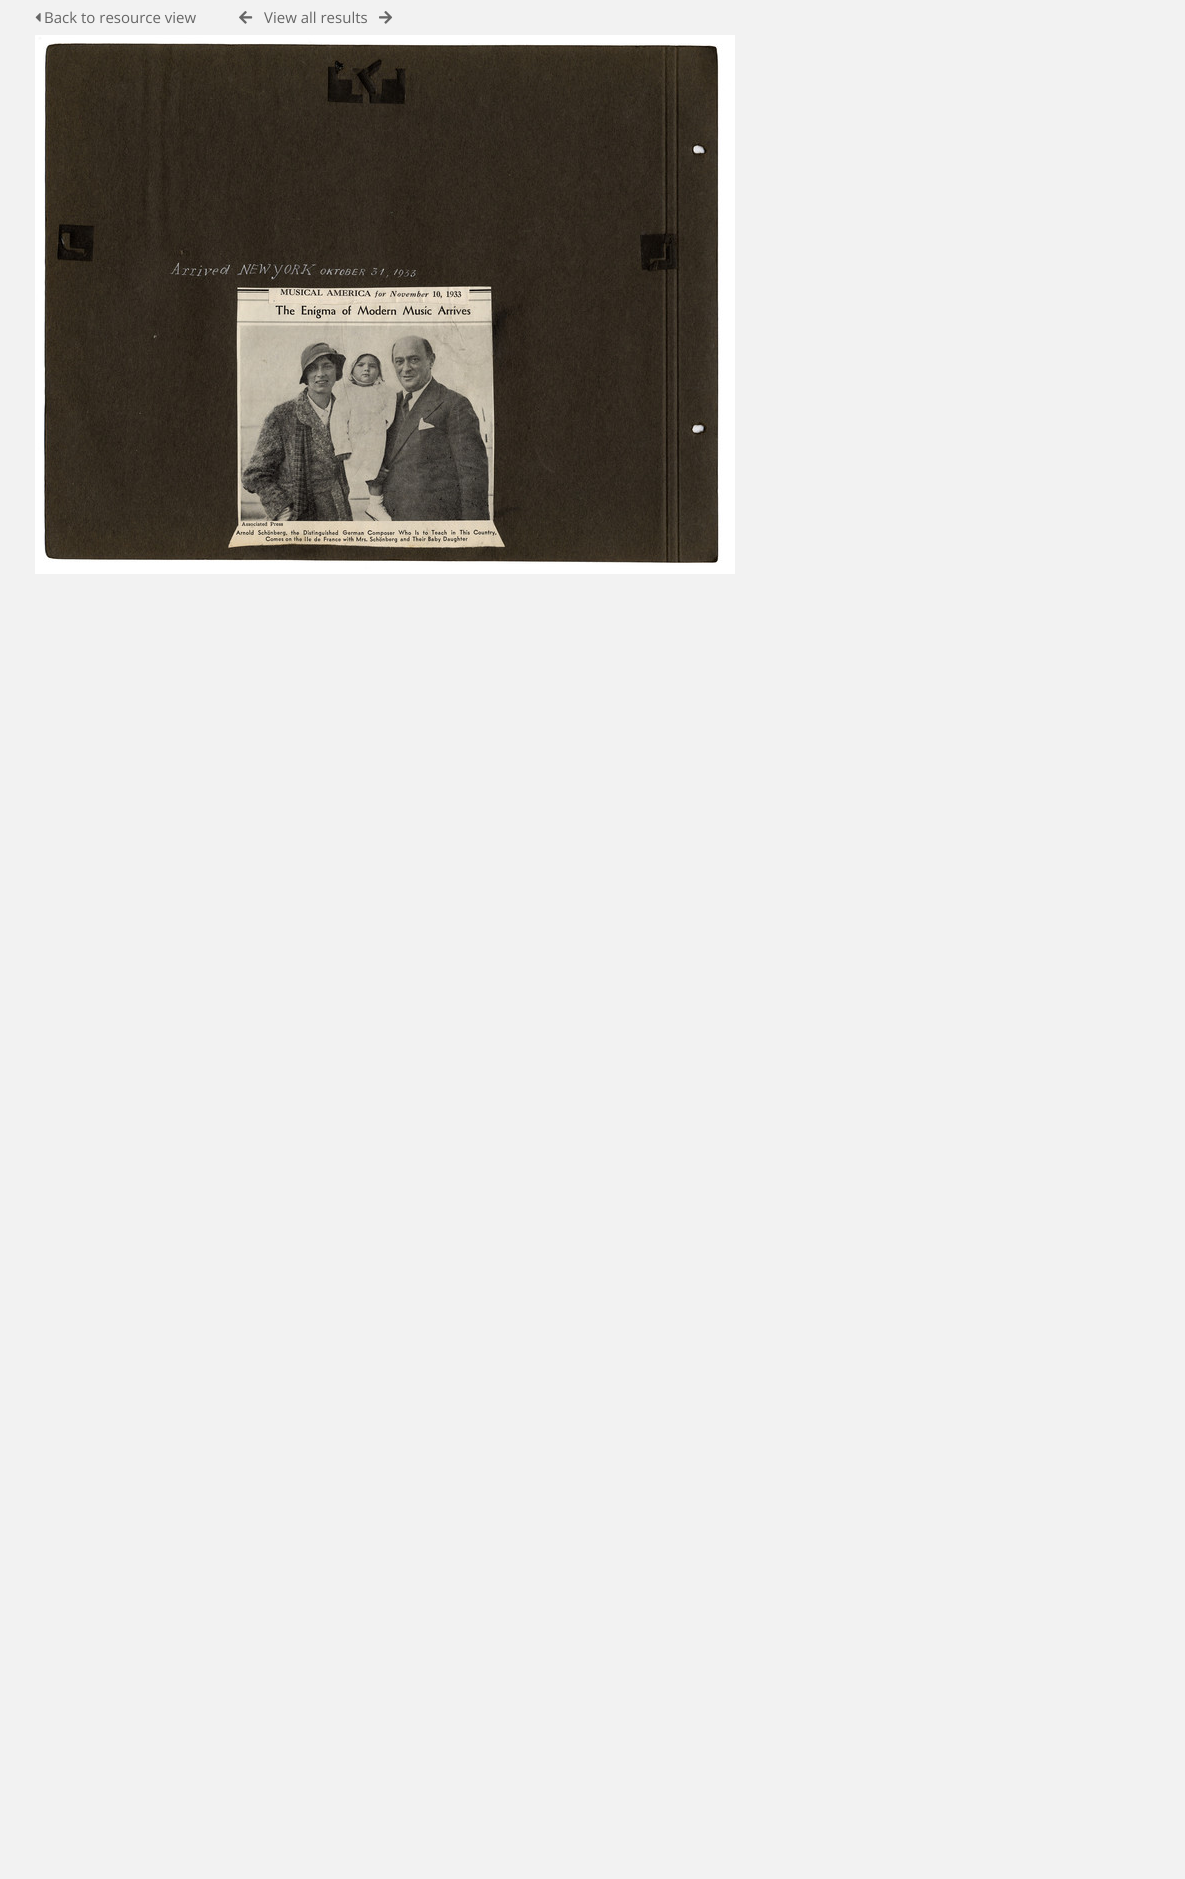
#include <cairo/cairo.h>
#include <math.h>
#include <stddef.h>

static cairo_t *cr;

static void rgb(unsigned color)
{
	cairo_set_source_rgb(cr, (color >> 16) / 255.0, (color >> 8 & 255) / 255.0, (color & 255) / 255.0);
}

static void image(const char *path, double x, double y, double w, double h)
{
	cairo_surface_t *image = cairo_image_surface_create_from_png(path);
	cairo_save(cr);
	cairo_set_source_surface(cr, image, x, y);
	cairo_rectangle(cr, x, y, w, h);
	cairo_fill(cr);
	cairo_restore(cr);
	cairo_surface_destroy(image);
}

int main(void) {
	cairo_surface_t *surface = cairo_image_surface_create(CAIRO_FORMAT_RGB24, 1185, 1879);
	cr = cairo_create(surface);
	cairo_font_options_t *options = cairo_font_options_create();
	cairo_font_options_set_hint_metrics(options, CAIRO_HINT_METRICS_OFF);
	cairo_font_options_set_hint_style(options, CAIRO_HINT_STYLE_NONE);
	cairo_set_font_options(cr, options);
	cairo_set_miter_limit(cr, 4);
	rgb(0xf2f2f2);
	cairo_paint(cr);
	image("img/1.png", 35, 13, 6, 9);
	image("img/2.png", 239, 11, 14, 13);
	image("img/3.png", 379, 11, 14, 13);
	image("img/4.png", 35, 35, 700, 539);
	cairo_select_font_face(cr, "Open Sans", CAIRO_FONT_SLANT_NORMAL, CAIRO_FONT_WEIGHT_NORMAL);
	cairo_set_font_size(cr, 15);
	rgb(0x666666);
	cairo_move_to(cr, 44, 23);
	cairo_show_text(cr, "Back to resource view");
	cairo_move_to(cr, 264, 23);
	cairo_show_text(cr, "View all results");
	cairo_surface_write_to_png(surface, "page.png");
	cairo_font_options_destroy(options);
	cairo_destroy(cr);
	cairo_surface_destroy(surface);
	return 0;
}
